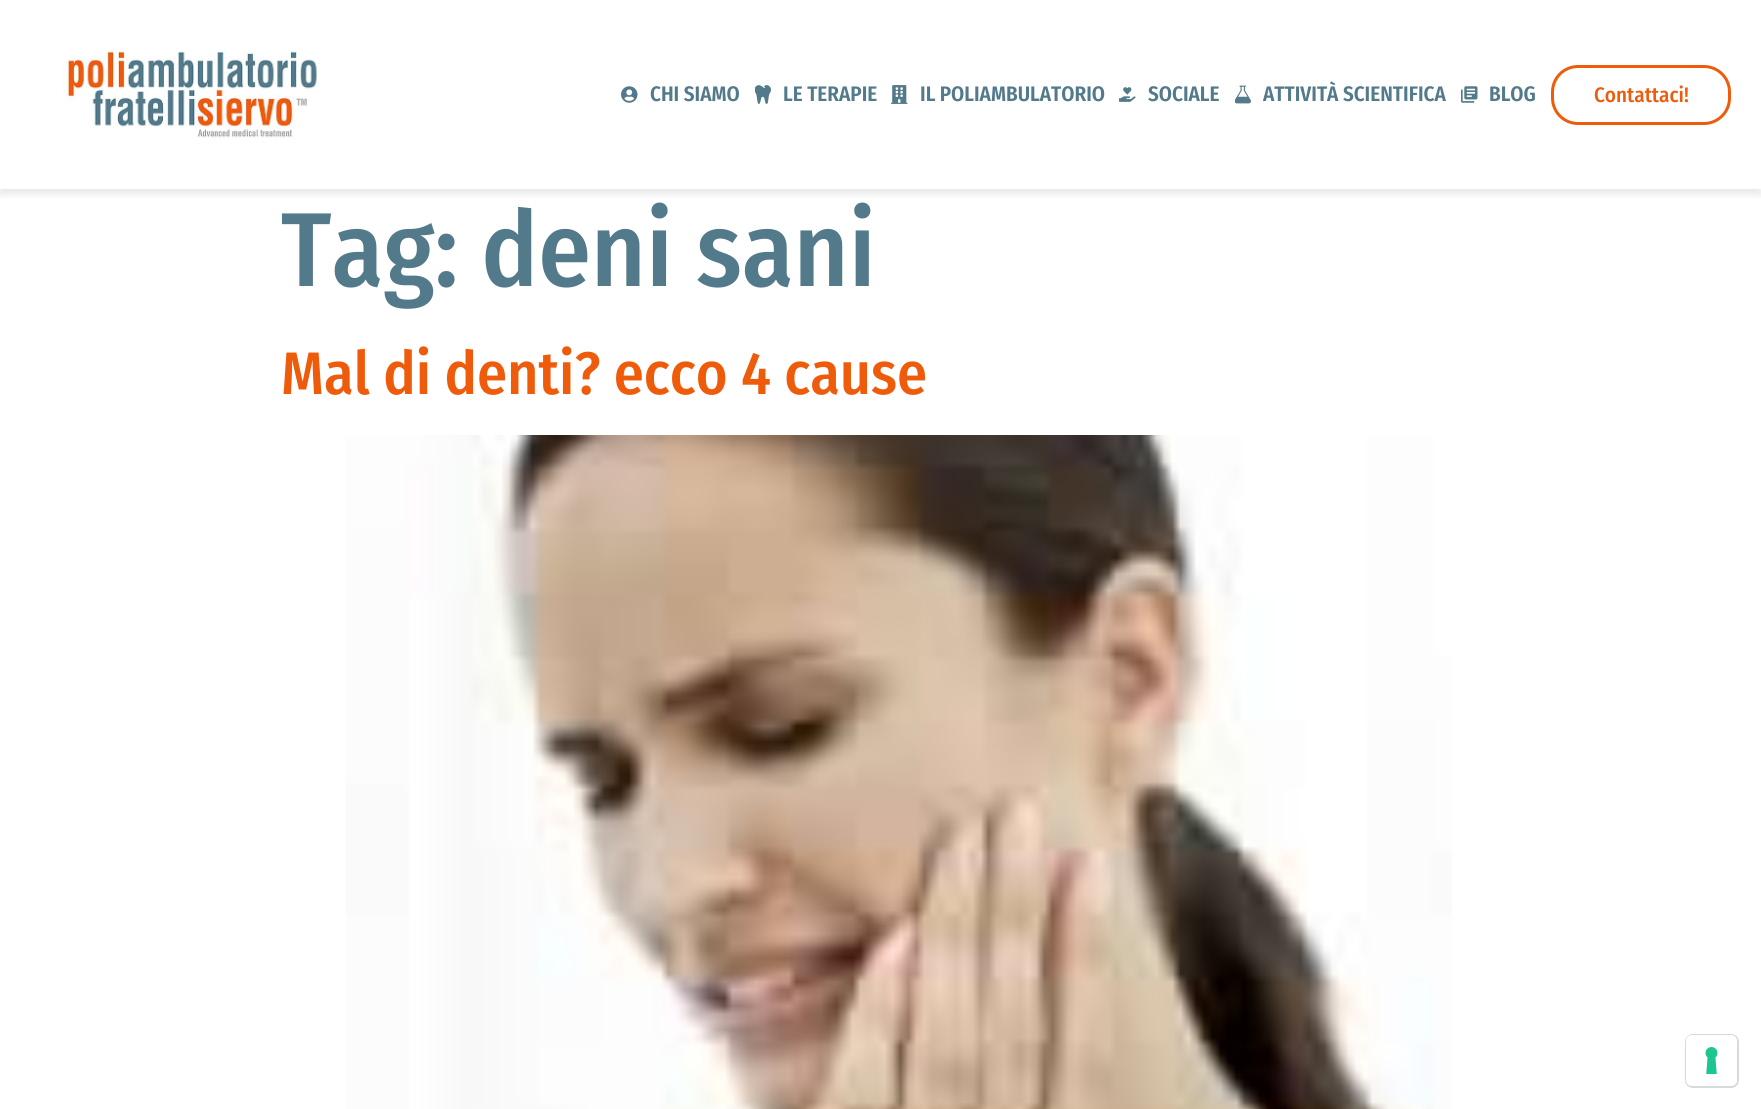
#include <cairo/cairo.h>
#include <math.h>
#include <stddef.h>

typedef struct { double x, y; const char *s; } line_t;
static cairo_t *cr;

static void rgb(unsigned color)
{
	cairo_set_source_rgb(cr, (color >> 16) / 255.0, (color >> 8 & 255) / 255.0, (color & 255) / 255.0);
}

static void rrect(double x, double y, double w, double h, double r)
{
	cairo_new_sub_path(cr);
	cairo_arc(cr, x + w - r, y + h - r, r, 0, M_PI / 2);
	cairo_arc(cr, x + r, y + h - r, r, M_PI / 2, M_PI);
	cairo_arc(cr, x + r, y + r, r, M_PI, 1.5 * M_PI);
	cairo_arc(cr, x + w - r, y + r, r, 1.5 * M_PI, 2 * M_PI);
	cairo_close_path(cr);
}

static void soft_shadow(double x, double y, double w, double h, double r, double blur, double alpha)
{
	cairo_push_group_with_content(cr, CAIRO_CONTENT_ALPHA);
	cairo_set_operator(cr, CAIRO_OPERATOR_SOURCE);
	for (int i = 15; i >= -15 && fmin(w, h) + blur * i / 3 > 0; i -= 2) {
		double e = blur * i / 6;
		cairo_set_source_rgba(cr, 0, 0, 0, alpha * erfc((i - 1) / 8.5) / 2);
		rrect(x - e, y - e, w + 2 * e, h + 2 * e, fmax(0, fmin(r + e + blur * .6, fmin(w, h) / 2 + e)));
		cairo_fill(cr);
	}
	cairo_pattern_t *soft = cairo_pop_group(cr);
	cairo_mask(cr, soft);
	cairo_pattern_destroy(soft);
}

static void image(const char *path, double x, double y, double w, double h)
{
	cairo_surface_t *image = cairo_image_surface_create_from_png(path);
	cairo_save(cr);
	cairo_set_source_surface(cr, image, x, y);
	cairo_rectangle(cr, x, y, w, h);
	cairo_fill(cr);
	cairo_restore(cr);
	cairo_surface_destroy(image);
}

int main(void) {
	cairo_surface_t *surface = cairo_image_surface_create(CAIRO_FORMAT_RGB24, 1761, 1109);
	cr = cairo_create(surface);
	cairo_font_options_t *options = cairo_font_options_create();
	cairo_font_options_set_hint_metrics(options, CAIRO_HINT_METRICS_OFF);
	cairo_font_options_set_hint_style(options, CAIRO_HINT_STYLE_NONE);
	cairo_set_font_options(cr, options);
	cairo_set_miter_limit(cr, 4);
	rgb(0xffffff);
	cairo_paint(cr);
	cairo_save(cr);
	cairo_rectangle(cr, 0, 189, 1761, 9);
	cairo_clip(cr);
	rgb(0x000000);
	soft_shadow(0, 5, 1761, 189, 0, 4.5, 0.1);
	cairo_restore(cr);
	image("img/1.png", 63, 48, 255, 90);
	image("img/2.png", 621, 86, 17, 17);
	image("img/3.png", 755, 85, 16, 19);
	image("img/4.png", 891, 85, 17, 19);
	image("img/5.png", 1119, 87, 17, 15);
	image("img/6.png", 1235, 85, 16, 19);
	image("img/7.png", 1461, 86, 17, 17);
	rrect(1552.5, 66.5, 177, 57, 25.5);
	rgb(0xee5c0b);
	cairo_set_line_width(cr, 3);
	cairo_stroke(cr);
	image("img/8.png", 346, 435, 1106, 674);
	rrect(1686, 1035, 52, 52, 7);
	rgb(0xd9d9d9);
	cairo_set_line_width(cr, 2);
	cairo_stroke(cr);
	rgb(0xffffff);
	rrect(1686, 1035, 51, 51, 6);
	cairo_fill(cr);
	image("img/9.png", 1705, 1047, 13, 27);
	cairo_select_font_face(cr, "Fira Sans Condensed SemiBold", CAIRO_FONT_SLANT_NORMAL, CAIRO_FONT_WEIGHT_NORMAL);
	cairo_set_font_size(cr, 21);
	rgb(0x537a8b);
	{
		static const line_t items[] = {
			{650, 101, "CHI SIAMO"},
			{783, 101, "LE TERAPIE"},
			{920, 101, "IL POLIAMBULATORIO"},
			{1148, 101, "SOCIALE"},
			{1263, 101, "ATTIVITÀ SCIENTIFICA"},
			{1489, 101, "BLOG"},
		};
		for (size_t i = 0; i < sizeof items / sizeof *items; i++) {
			cairo_move_to(cr, items[i].x, items[i].y);
			cairo_show_text(cr, items[i].s);
		}
	}
	cairo_select_font_face(cr, "Fira Sans Condensed Medium", CAIRO_FONT_SLANT_NORMAL, CAIRO_FONT_WEIGHT_NORMAL);
	rgb(0xee5c0b);
	cairo_move_to(cr, 1594, 102);
	cairo_show_text(cr, "Contattaci!");
	cairo_set_font_size(cr, 105);
	rgb(0x537a8b);
	cairo_move_to(cr, 281, 286);
	cairo_show_text(cr, "Tag: deni sani");
	cairo_set_font_size(cr, 60);
	rgb(0xee5c0b);
	cairo_move_to(cr, 281, 394);
	cairo_show_text(cr, "Mal di denti? ecco 4 cause");
	cairo_surface_write_to_png(surface, "page.png");
	cairo_font_options_destroy(options);
	cairo_destroy(cr);
	cairo_surface_destroy(surface);
	return 0;
}
